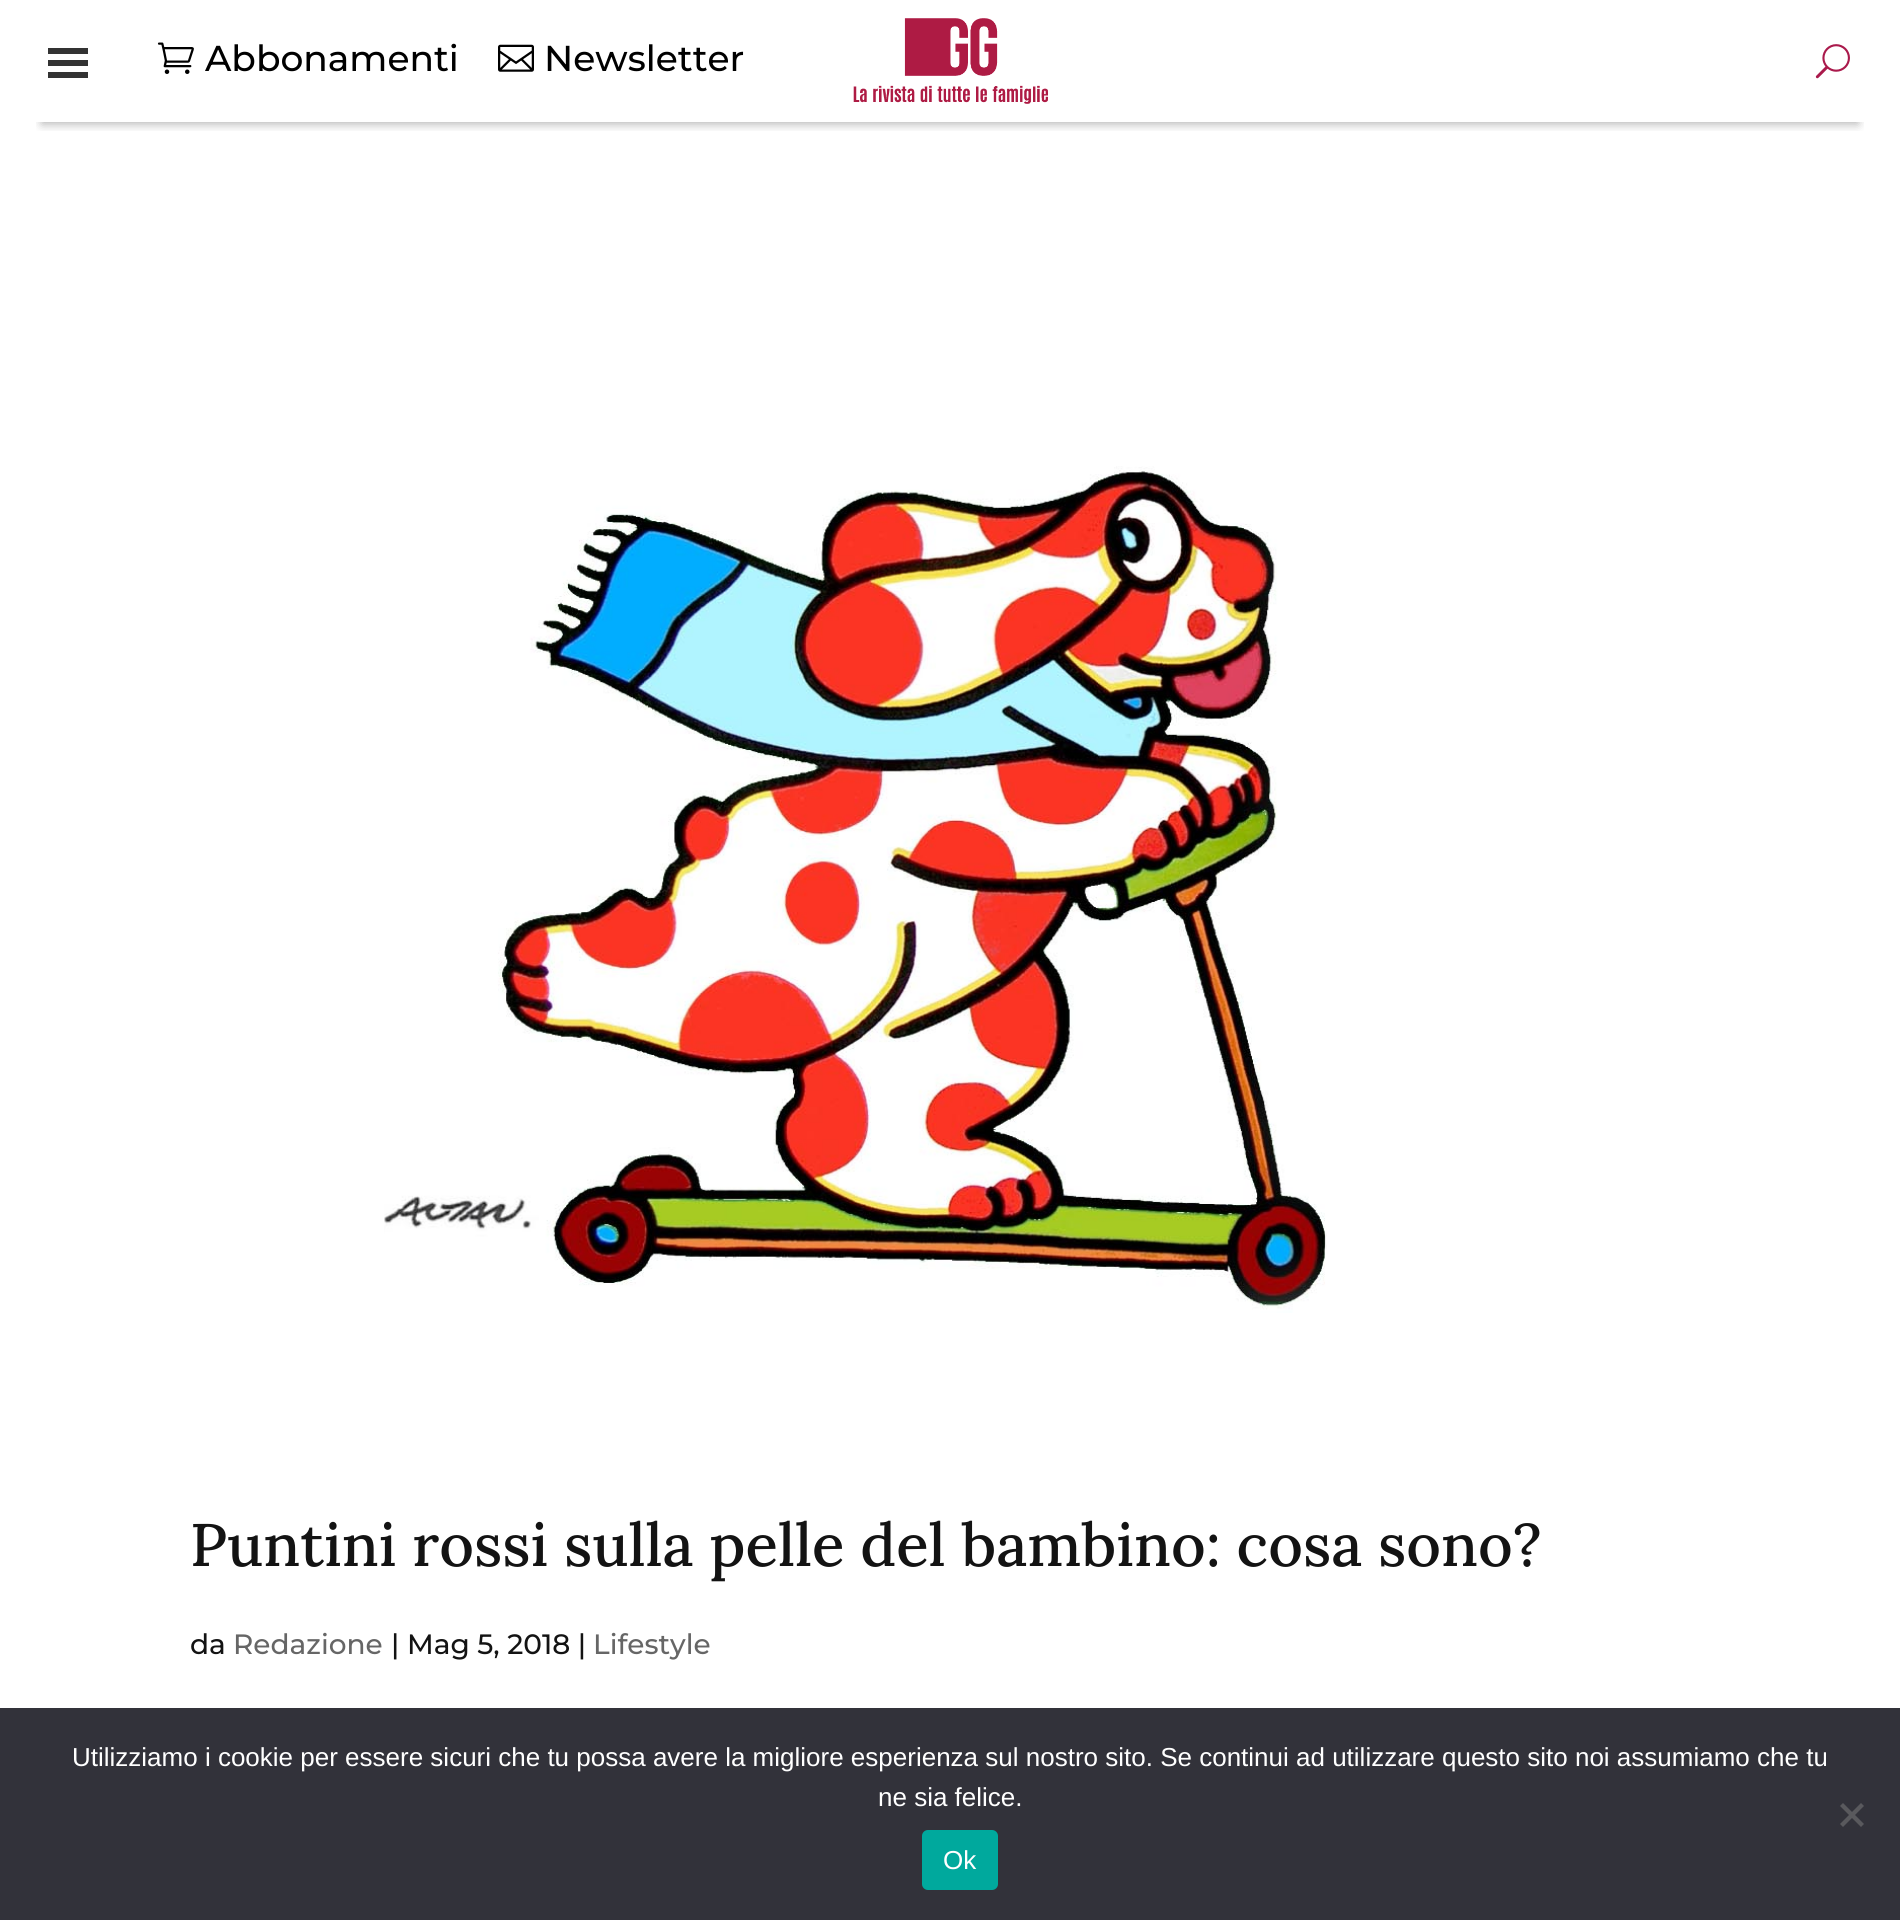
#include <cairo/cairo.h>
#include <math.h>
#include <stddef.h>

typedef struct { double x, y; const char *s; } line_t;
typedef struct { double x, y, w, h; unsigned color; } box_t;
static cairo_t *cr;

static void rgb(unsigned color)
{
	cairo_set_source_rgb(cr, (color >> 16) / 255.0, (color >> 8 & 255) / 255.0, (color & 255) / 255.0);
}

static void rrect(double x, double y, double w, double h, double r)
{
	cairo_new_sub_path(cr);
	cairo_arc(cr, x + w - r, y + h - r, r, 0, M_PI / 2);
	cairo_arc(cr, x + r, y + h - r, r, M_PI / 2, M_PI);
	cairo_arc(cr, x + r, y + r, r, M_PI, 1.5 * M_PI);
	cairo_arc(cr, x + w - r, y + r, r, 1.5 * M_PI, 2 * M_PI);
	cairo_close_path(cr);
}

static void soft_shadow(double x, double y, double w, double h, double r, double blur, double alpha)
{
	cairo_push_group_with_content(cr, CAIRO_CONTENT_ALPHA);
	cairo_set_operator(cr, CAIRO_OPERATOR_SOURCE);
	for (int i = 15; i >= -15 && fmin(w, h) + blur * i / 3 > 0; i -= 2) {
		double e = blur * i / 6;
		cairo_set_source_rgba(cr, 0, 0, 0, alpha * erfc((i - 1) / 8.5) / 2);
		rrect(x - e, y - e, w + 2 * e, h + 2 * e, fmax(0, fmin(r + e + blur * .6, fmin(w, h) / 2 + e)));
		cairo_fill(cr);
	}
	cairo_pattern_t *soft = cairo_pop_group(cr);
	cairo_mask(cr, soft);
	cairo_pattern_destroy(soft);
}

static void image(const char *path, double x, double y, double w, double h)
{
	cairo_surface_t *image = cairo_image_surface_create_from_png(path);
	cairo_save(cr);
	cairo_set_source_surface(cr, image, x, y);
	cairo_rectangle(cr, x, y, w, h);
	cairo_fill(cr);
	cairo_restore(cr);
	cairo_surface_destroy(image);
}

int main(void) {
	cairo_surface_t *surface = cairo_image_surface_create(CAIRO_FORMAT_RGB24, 1900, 1920);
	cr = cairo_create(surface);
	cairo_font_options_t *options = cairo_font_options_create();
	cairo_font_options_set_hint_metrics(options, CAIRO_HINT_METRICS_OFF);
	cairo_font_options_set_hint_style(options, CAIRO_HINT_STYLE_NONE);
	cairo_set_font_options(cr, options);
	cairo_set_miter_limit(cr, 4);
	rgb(0xffffff);
	cairo_paint(cr);
	cairo_save(cr);
	cairo_rectangle(cr, 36, 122, 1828, 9);
	cairo_clip(cr);
	rgb(0x000000);
	soft_shadow(42, 30, 1816, 94, 0, 5, 0.3);
	cairo_restore(cr);
	{
		static const box_t items[] = {
			{48, 48, 40, 6, 0x333333},
			{48, 60, 40, 6, 0x333333},
			{48, 72, 40, 6, 0x333333},
		};
		for (size_t i = 0; i < sizeof items / sizeof *items; i++) {
			rgb(items[i].color);
			cairo_rectangle(cr, items[i].x, items[i].y, items[i].w, items[i].h);
			cairo_fill(cr);
		}
	}
	image("img/1.png", 157, 42, 37, 32);
	image("img/2.png", 498, 44, 36, 28);
	image("img/3.png", 853, 18, 195, 86);
	image("img/4.png", 1815, 44, 35, 35);
	image("img/5.png", 384, 466, 943, 847);
	rgb(0x32323a);
	cairo_rectangle(cr, 0, 1708, 1900, 212);
	cairo_fill(cr);
	rgb(0x59595d);
	cairo_new_path(cr);
	cairo_move_to(cr, 1861, 1803);
	cairo_line_to(cr, 1864, 1806);
	cairo_line_to(cr, 1843, 1827);
	cairo_line_to(cr, 1840, 1824);
	cairo_close_path(cr);
	cairo_fill(cr);
	cairo_new_path(cr);
	cairo_move_to(cr, 1840, 1806);
	cairo_line_to(cr, 1843, 1803);
	cairo_line_to(cr, 1864, 1824);
	cairo_line_to(cr, 1861, 1827);
	cairo_close_path(cr);
	cairo_fill(cr);
	rgb(0x00a99d);
	rrect(922, 1830, 76, 60, 6);
	cairo_fill(cr);
	cairo_select_font_face(cr, "Montserrat Medium", CAIRO_FONT_SLANT_NORMAL, CAIRO_FONT_WEIGHT_NORMAL);
	cairo_set_font_size(cr, 36);
	rgb(0x000000);
	cairo_move_to(cr, 205, 71);
	cairo_show_text(cr, "Abbonamenti");
	cairo_move_to(cr, 544, 71);
	cairo_show_text(cr, "Newsletter");
	cairo_select_font_face(cr, "Lora Medium", CAIRO_FONT_SLANT_NORMAL, CAIRO_FONT_WEIGHT_NORMAL);
	cairo_set_font_size(cr, 60);
	rgb(0x131313);
	cairo_move_to(cr, 190, 1566);
	cairo_show_text(cr, "Puntini rossi sulla pelle del bambino: cosa sono?");
	cairo_select_font_face(cr, "Montserrat Medium", CAIRO_FONT_SLANT_NORMAL, CAIRO_FONT_WEIGHT_NORMAL);
	cairo_set_font_size(cr, 28);
	cairo_move_to(cr, 190, 1654);
	cairo_show_text(cr, "da");
	rgb(0x666666);
	cairo_move_to(cr, 233, 1654);
	cairo_show_text(cr, "Redazione");
	rgb(0x131313);
	cairo_move_to(cr, 391, 1654);
	cairo_show_text(cr, "| Mag 5, 2018 |");
	rgb(0x666666);
	cairo_move_to(cr, 593, 1654);
	cairo_show_text(cr, "Lifestyle");
	cairo_select_font_face(cr, "Liberation Sans", CAIRO_FONT_SLANT_NORMAL, CAIRO_FONT_WEIGHT_NORMAL);
	cairo_set_font_size(cr, 26);
	rgb(0xffffff);
	{
		static const line_t items[] = {
			{72, 1766, "Utilizziamo i cookie per essere sicuri che tu possa avere la migliore esperienza sul nostro sito. Se continui ad utilizzare questo sito noi assumiamo che tu"},
			{878, 1806, "ne sia felice."},
			{943, 1869, "Ok"},
		};
		for (size_t i = 0; i < sizeof items / sizeof *items; i++) {
			cairo_move_to(cr, items[i].x, items[i].y);
			cairo_show_text(cr, items[i].s);
		}
	}
	cairo_surface_write_to_png(surface, "page.png");
	cairo_font_options_destroy(options);
	cairo_destroy(cr);
	cairo_surface_destroy(surface);
	return 0;
}
